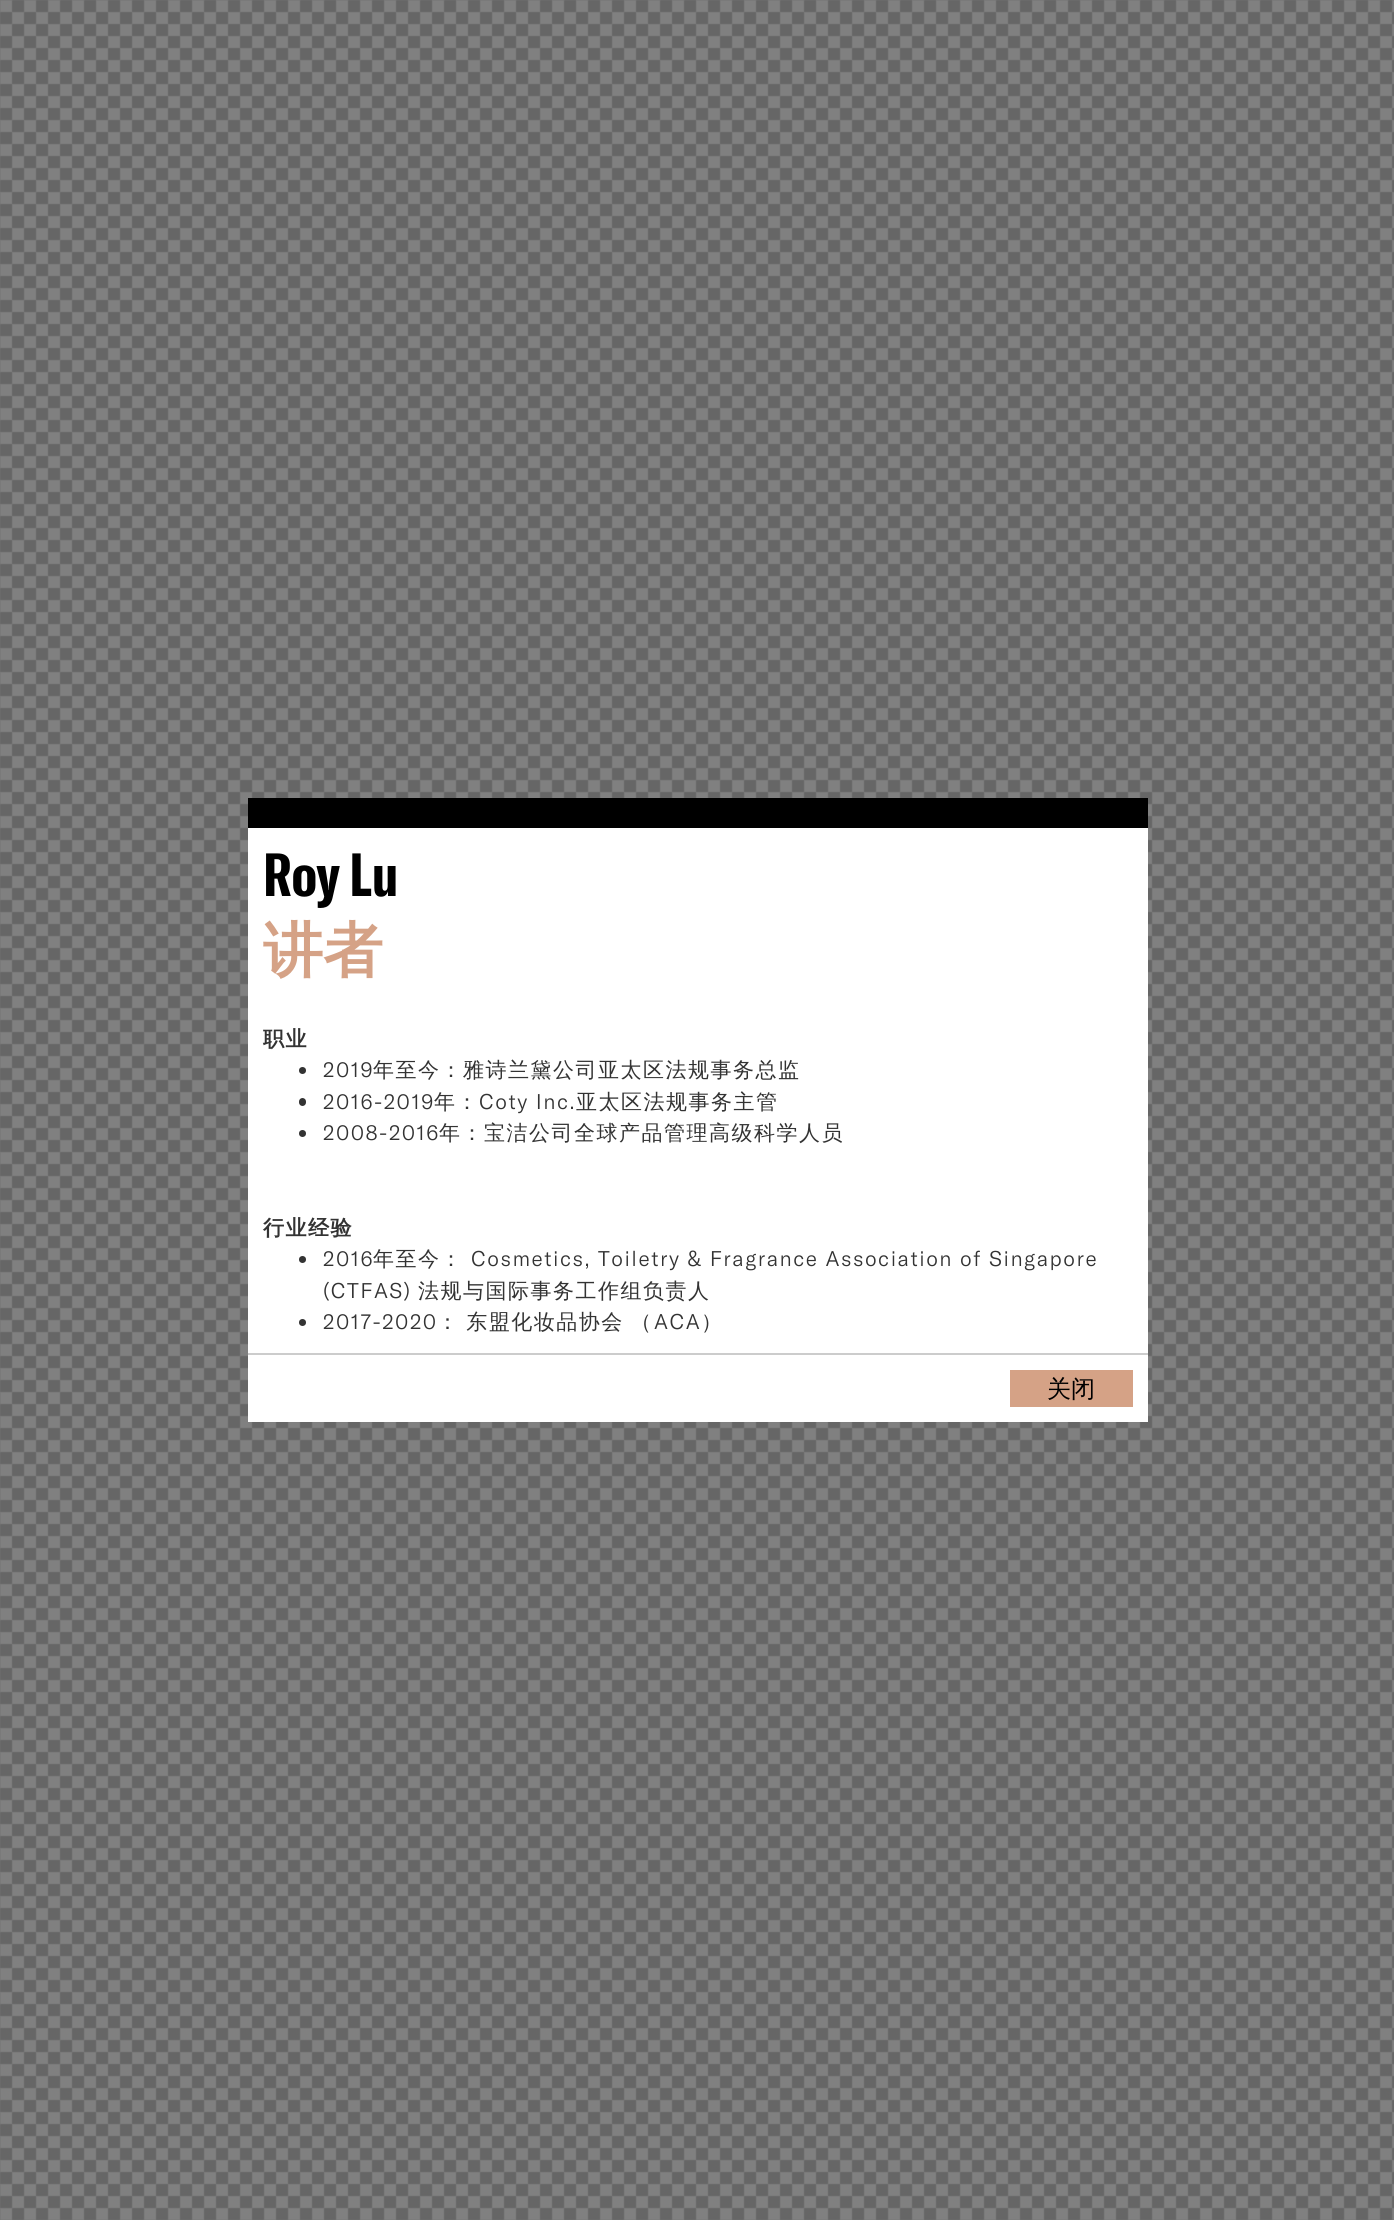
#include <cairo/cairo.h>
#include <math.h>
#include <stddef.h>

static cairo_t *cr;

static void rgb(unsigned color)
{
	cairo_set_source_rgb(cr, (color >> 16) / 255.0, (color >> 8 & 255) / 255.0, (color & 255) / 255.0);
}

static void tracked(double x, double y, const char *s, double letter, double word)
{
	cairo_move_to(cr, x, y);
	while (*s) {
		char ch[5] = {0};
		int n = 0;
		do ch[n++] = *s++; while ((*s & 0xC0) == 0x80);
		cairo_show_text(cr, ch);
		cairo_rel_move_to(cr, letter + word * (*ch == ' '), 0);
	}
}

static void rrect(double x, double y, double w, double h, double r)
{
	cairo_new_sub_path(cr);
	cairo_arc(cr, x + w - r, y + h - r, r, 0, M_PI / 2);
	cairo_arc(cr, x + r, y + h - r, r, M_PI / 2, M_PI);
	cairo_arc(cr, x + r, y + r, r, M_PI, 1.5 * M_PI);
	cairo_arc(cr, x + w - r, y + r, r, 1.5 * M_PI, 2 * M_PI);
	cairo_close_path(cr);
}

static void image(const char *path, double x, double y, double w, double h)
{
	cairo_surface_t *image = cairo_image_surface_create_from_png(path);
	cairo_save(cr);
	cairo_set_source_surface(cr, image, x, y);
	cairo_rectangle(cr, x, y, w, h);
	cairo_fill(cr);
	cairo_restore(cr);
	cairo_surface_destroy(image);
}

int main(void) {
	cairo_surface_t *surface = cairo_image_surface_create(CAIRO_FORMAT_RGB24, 1394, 2220);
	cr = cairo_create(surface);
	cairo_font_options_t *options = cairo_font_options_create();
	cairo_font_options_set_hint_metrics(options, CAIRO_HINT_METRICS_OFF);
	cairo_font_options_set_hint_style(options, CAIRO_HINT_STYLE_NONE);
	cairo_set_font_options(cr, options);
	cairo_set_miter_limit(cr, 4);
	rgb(0xffffff);
	cairo_paint(cr);
	image("img/1.png", 0, 0, 1394, 2220);
	rgb(0xffffff);
	cairo_rectangle(cr, 248, 828, 900, 594);
	cairo_fill(cr);
	rgb(0x000000);
	cairo_rectangle(cr, 248, 798, 900, 30);
	cairo_fill(cr);
	rgb(0x333333);
	cairo_arc(cr, 302.5, 1070.5, 3.5, 0, 2 * M_PI);
	cairo_fill(cr);
	rrect(299, 1098, 7, 8, 3.5);
	cairo_fill(cr);
	cairo_arc(cr, 302.5, 1133.5, 3.5, 0, 2 * M_PI);
	cairo_fill(cr);
	cairo_arc(cr, 302.5, 1259.5, 3.5, 0, 2 * M_PI);
	cairo_fill(cr);
	cairo_arc(cr, 302.5, 1322.5, 3.5, 0, 2 * M_PI);
	cairo_fill(cr);
	rgb(0xcccccc);
	cairo_rectangle(cr, 248, 1353, 900, 2);
	cairo_fill(cr);
	rgb(0xd5a286);
	cairo_rectangle(cr, 1010, 1370, 123, 37);
	cairo_fill(cr);
	cairo_select_font_face(cr, "GT America", CAIRO_FONT_SLANT_NORMAL, CAIRO_FONT_WEIGHT_BOLD);
	cairo_set_font_size(cr, 60);
	rgb(0x000000);
	cairo_move_to(cr, 263, 896);
	cairo_show_text(cr, "Roy Lu");
	cairo_select_font_face(cr, "WenQuanYi Zen Hei", CAIRO_FONT_SLANT_NORMAL, CAIRO_FONT_WEIGHT_BOLD);
	rgb(0xd5a286);
	cairo_move_to(cr, 263, 971);
	cairo_show_text(cr, "讲者");
	cairo_set_font_size(cr, 21);
	rgb(0x333333);
	tracked(263, 1046, "职业", 1.5, 0);
	cairo_select_font_face(cr, "GT America Light", CAIRO_FONT_SLANT_NORMAL, CAIRO_FONT_WEIGHT_NORMAL);
	tracked(323, 1077, "2019", 1.5, 0);
	cairo_select_font_face(cr, "WenQuanYi Zen Hei Medium", CAIRO_FONT_SLANT_NORMAL, CAIRO_FONT_WEIGHT_NORMAL);
	tracked(373, 1077, "年至今：雅诗兰黛公司亚太区法规事务总监", 1.5, 0);
	cairo_select_font_face(cr, "GT America Light", CAIRO_FONT_SLANT_NORMAL, CAIRO_FONT_WEIGHT_NORMAL);
	tracked(323, 1109, "2016-2019", 1.5, 0);
	cairo_select_font_face(cr, "WenQuanYi Zen Hei Medium", CAIRO_FONT_SLANT_NORMAL, CAIRO_FONT_WEIGHT_NORMAL);
	tracked(434, 1109, "年：", 1.5, 0);
	cairo_select_font_face(cr, "GT America Light", CAIRO_FONT_SLANT_NORMAL, CAIRO_FONT_WEIGHT_NORMAL);
	tracked(479, 1109, "Coty Inc.", 1.5, 0);
	cairo_select_font_face(cr, "WenQuanYi Zen Hei Medium", CAIRO_FONT_SLANT_NORMAL, CAIRO_FONT_WEIGHT_NORMAL);
	tracked(576, 1109, "亚太区法规事务主管", 1.5, 0);
	cairo_select_font_face(cr, "GT America Light", CAIRO_FONT_SLANT_NORMAL, CAIRO_FONT_WEIGHT_NORMAL);
	tracked(323, 1140, "2008-2016", 1.5, 0);
	cairo_select_font_face(cr, "WenQuanYi Zen Hei Medium", CAIRO_FONT_SLANT_NORMAL, CAIRO_FONT_WEIGHT_NORMAL);
	tracked(439, 1140, "年：宝洁公司全球产品管理高级科学人员", 1.5, 0);
	cairo_select_font_face(cr, "WenQuanYi Zen Hei", CAIRO_FONT_SLANT_NORMAL, CAIRO_FONT_WEIGHT_BOLD);
	tracked(263, 1235, "行业经验", 1.5, 0);
	cairo_select_font_face(cr, "GT America Light", CAIRO_FONT_SLANT_NORMAL, CAIRO_FONT_WEIGHT_NORMAL);
	tracked(323, 1266, "2016", 1.5, 0);
	cairo_select_font_face(cr, "WenQuanYi Zen Hei Medium", CAIRO_FONT_SLANT_NORMAL, CAIRO_FONT_WEIGHT_NORMAL);
	tracked(373, 1266, "年至今：", 1.5, 0);
	cairo_select_font_face(cr, "GT America Light", CAIRO_FONT_SLANT_NORMAL, CAIRO_FONT_WEIGHT_NORMAL);
	tracked(471, 1266, "Cosmetics, Toiletry & Fragrance Association of Singapore", 1.5, 0);
	tracked(323, 1298, "(CTFAS)", 1.5, 0);
	cairo_select_font_face(cr, "WenQuanYi Zen Hei Medium", CAIRO_FONT_SLANT_NORMAL, CAIRO_FONT_WEIGHT_NORMAL);
	tracked(418, 1298, "法规与国际事务工作组负责人", 1.5, 0);
	cairo_select_font_face(cr, "GT America Light", CAIRO_FONT_SLANT_NORMAL, CAIRO_FONT_WEIGHT_NORMAL);
	tracked(323, 1329, "2017-2020", 1.5, 0);
	cairo_select_font_face(cr, "WenQuanYi Zen Hei Medium", CAIRO_FONT_SLANT_NORMAL, CAIRO_FONT_WEIGHT_NORMAL);
	tracked(437, 1329, "： 东盟化妆品协会 （", 1.5, -1);
	cairo_select_font_face(cr, "GT America Light", CAIRO_FONT_SLANT_NORMAL, CAIRO_FONT_WEIGHT_NORMAL);
	tracked(654, 1329, "ACA", 1.5, 0);
	cairo_select_font_face(cr, "WenQuanYi Zen Hei Medium", CAIRO_FONT_SLANT_NORMAL, CAIRO_FONT_WEIGHT_NORMAL);
	tracked(701, 1329, "）", 1.5, 0);
	cairo_set_font_size(cr, 24);
	rgb(0x000000);
	cairo_move_to(cr, 1047, 1397);
	cairo_show_text(cr, "关闭");
	cairo_surface_write_to_png(surface, "page.png");
	cairo_font_options_destroy(options);
	cairo_destroy(cr);
	cairo_surface_destroy(surface);
	return 0;
}
